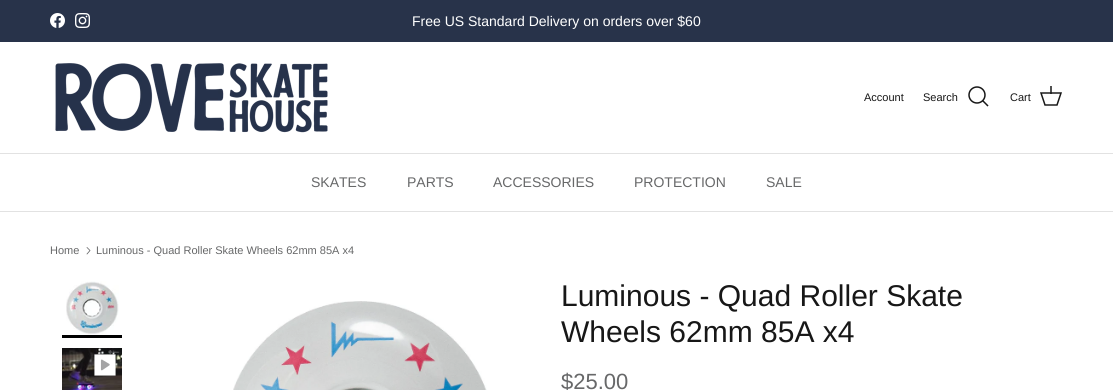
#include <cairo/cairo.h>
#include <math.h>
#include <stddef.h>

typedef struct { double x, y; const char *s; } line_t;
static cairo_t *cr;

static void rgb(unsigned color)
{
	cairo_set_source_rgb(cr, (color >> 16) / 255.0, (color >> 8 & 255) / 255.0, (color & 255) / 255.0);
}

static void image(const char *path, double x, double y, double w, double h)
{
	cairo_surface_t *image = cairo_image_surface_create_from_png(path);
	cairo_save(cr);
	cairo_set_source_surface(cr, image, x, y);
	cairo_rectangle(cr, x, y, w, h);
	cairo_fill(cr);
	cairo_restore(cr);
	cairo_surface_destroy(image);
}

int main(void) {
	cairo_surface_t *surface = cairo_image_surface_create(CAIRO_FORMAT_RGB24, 1113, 390);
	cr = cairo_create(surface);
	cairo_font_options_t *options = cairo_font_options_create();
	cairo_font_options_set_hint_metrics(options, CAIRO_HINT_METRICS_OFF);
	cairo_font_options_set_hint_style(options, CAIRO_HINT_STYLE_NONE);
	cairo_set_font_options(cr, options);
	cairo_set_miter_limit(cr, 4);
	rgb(0xffffff);
	cairo_paint(cr);
	rgb(0x28334a);
	cairo_rectangle(cr, 0, 0, 1113, 42);
	cairo_fill(cr);
	image("img/1.png", 50, 13, 15, 15);
	image("img/2.png", 75, 13, 15, 15);
	rgb(0xe2e2e2);
	cairo_rectangle(cr, 0, 153, 1113, 1);
	cairo_fill(cr);
	image("img/3.png", 55, 63, 273, 70);
	cairo_arc(cr, 977, 95, 8, 0, 2 * M_PI);
	rgb(0x171717);
	cairo_set_line_width(cr, 1.5);
	cairo_stroke(cr);
	cairo_new_path(cr);
	cairo_move_to(cr, 983, 101);
	cairo_line_to(cr, 987.5, 105.5);
	cairo_set_line_cap(cr, CAIRO_LINE_CAP_SQUARE);
	cairo_stroke(cr);
	cairo_new_path(cr);
	cairo_move_to(cr, 1041, 93);
	cairo_line_to(cr, 1061, 93);
	cairo_line_to(cr, 1057, 105);
	cairo_line_to(cr, 1045, 105);
	cairo_close_path(cr);
	cairo_set_line_cap(cr, CAIRO_LINE_CAP_BUTT);
	cairo_stroke(cr);
	cairo_set_source_rgba(cr, 0.09, 0.09, 0.09, 0.75);
	cairo_rectangle(cr, 1050, 86, 2, 8);
	cairo_fill(cr);
	rgb(0xe2e2e2);
	cairo_rectangle(cr, 0, 211, 1113, 1);
	cairo_fill(cr);
	cairo_new_path(cr);
	cairo_move_to(cr, 87, 254);
	cairo_line_to(cr, 90, 250.5);
	cairo_line_to(cr, 87, 247.5);
	rgb(0x676869);
	cairo_set_line_width(cr, 0.8);
	cairo_set_line_cap(cr, CAIRO_LINE_CAP_ROUND);
	cairo_set_line_join(cr, CAIRO_LINE_JOIN_ROUND);
	cairo_stroke(cr);
	image("img/4.png", 66, 281, 53, 54);
	rgb(0x000000);
	cairo_rectangle(cr, 62, 335, 60, 3);
	cairo_fill(cr);
	image("img/5.png", 62, 348, 60, 42);
	image("img/6.png", 94, 354, 22, 22);
	image("img/7.png", 233, 301, 254, 89);
	cairo_select_font_face(cr, "Arimo", CAIRO_FONT_SLANT_NORMAL, CAIRO_FONT_WEIGHT_NORMAL);
	cairo_set_font_size(cr, 14);
	rgb(0xffffff);
	cairo_move_to(cr, 412, 26);
	cairo_show_text(cr, "Free US Standard Delivery on orders over $60");
	cairo_set_font_size(cr, 11);
	rgb(0x171717);
	{
		static const line_t items[] = {
			{864, 101, "Account"},
			{923, 101, "Search"},
			{1010, 101, "Cart"},
		};
		for (size_t i = 0; i < sizeof items / sizeof *items; i++) {
			cairo_move_to(cr, items[i].x, items[i].y);
			cairo_show_text(cr, items[i].s);
		}
	}
	cairo_set_font_size(cr, 14);
	rgb(0x676869);
	{
		static const line_t items[] = {
			{311, 187, "SKATES"},
			{407, 187, "PARTS"},
			{493, 187, "ACCESSORIES"},
			{634, 187, "PROTECTION"},
			{766, 187, "SALE"},
		};
		for (size_t i = 0; i < sizeof items / sizeof *items; i++) {
			cairo_move_to(cr, items[i].x, items[i].y);
			cairo_show_text(cr, items[i].s);
		}
	}
	cairo_set_font_size(cr, 11);
	cairo_move_to(cr, 50, 254);
	cairo_show_text(cr, "Home");
	cairo_move_to(cr, 96, 254);
	cairo_show_text(cr, "Luminous - Quad Roller Skate Wheels 62mm 85A x4");
	cairo_set_font_size(cr, 30);
	rgb(0x171717);
	cairo_move_to(cr, 561, 306);
	cairo_show_text(cr, "Luminous - Quad Roller Skate");
	cairo_move_to(cr, 561, 342);
	cairo_show_text(cr, "Wheels 62mm 85A x4");
	cairo_set_font_size(cr, 22);
	rgb(0x676869);
	cairo_move_to(cr, 561, 389);
	cairo_show_text(cr, "$25.00");
	cairo_surface_write_to_png(surface, "page.png");
	cairo_font_options_destroy(options);
	cairo_destroy(cr);
	cairo_surface_destroy(surface);
	return 0;
}
